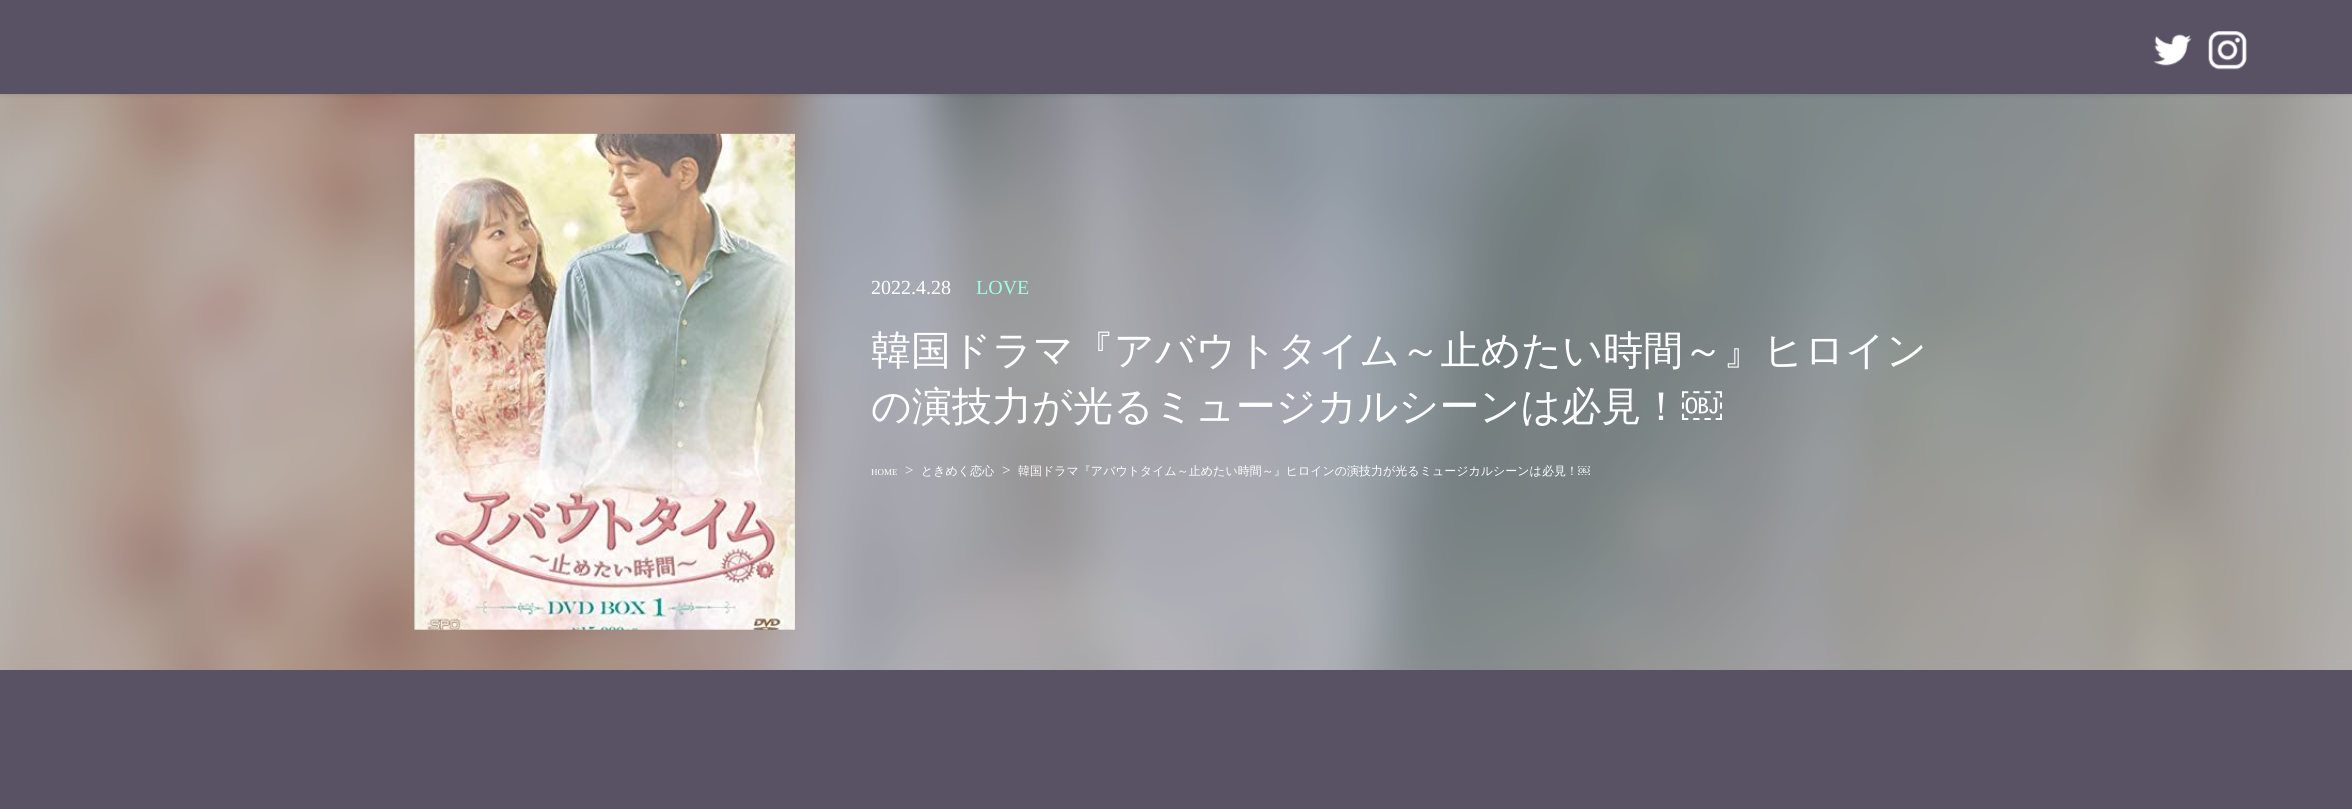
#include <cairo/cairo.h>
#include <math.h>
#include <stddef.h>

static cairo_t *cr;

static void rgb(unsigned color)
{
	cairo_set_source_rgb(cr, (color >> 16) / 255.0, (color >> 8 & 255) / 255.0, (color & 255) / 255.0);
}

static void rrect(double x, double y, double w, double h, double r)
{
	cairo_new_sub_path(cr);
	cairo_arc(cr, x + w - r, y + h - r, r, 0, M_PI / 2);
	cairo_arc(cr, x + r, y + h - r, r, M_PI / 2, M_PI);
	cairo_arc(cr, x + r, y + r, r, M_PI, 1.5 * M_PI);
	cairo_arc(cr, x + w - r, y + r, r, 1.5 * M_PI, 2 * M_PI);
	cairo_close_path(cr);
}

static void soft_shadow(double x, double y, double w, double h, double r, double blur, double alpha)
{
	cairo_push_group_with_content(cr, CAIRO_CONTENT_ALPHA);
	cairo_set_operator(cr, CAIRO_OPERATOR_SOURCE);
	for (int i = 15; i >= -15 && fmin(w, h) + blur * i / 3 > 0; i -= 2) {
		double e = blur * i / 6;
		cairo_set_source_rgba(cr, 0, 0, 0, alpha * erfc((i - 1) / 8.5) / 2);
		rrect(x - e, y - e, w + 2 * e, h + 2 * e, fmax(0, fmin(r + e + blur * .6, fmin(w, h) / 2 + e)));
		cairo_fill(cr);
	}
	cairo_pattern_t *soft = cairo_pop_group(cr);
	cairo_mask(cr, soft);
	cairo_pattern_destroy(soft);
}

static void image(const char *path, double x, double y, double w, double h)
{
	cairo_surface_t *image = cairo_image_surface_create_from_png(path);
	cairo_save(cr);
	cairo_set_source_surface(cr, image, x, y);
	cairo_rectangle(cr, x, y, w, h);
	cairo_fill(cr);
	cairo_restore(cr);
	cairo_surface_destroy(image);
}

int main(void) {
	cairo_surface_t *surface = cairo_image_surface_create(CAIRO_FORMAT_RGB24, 2352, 809);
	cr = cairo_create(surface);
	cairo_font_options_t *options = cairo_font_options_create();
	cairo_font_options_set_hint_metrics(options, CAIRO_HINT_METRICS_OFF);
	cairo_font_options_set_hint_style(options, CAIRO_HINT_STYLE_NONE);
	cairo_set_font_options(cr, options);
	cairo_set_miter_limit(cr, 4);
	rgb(0x595264);
	cairo_paint(cr);
	image("img/3.png", 0, 94, 2352, 576);
	image("img/4.png", 0, 94, 2352, 576);
	rgb(0x000000);
	soft_shadow(0, 1, 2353, 94, 0, 2, 0.1);
	rgb(0x595264);
	cairo_rectangle(cr, 0, 0, 2352, 94);
	cairo_fill(cr);
	image("img/1.png", 2153, 34, 39, 32);
	image("img/2.png", 2208, 31, 39, 39);
	image("img/5.png", 414, 133, 381, 497);
	cairo_select_font_face(cr, "Liberation Serif", CAIRO_FONT_SLANT_NORMAL, CAIRO_FONT_WEIGHT_NORMAL);
	cairo_set_font_size(cr, 20);
	rgb(0xffffff);
	cairo_move_to(cr, 871, 294);
	cairo_show_text(cr, "2022.4.28");
	rgb(0x9fffe1);
	cairo_move_to(cr, 976, 294);
	cairo_show_text(cr, "LOVE");
	cairo_select_font_face(cr, "WenQuanYi Zen Hei Medium", CAIRO_FONT_SLANT_NORMAL, CAIRO_FONT_WEIGHT_NORMAL);
	cairo_set_font_size(cr, 40);
	rgb(0xffffff);
	cairo_move_to(cr, 871, 364);
	cairo_show_text(cr, "韓国ドラマ『アバウトタイム～止めたい時間～』ヒロイン");
	cairo_move_to(cr, 871, 420);
	cairo_show_text(cr, "の演技力が光るミュージカルシーンは必見！");
	cairo_select_font_face(cr, "Liberation Serif", CAIRO_FONT_SLANT_NORMAL, CAIRO_FONT_WEIGHT_NORMAL);
	cairo_move_to(cr, 1682, 420);
	cairo_show_text(cr, "￼");
	cairo_set_font_size(cr, 9);
	cairo_move_to(cr, 871, 475);
	cairo_show_text(cr, "HOME");
	cairo_set_font_size(cr, 15);
	cairo_move_to(cr, 905, 475);
	cairo_show_text(cr, ">");
	cairo_select_font_face(cr, "WenQuanYi Zen Hei Medium", CAIRO_FONT_SLANT_NORMAL, CAIRO_FONT_WEIGHT_NORMAL);
	cairo_set_font_size(cr, 12);
	cairo_move_to(cr, 921, 475);
	cairo_show_text(cr, "ときめく恋心");
	cairo_select_font_face(cr, "Liberation Serif", CAIRO_FONT_SLANT_NORMAL, CAIRO_FONT_WEIGHT_NORMAL);
	cairo_set_font_size(cr, 15);
	cairo_move_to(cr, 1002, 475);
	cairo_show_text(cr, ">");
	cairo_select_font_face(cr, "WenQuanYi Zen Hei Medium", CAIRO_FONT_SLANT_NORMAL, CAIRO_FONT_WEIGHT_NORMAL);
	cairo_set_font_size(cr, 12);
	cairo_move_to(cr, 1018, 475);
	cairo_show_text(cr, "韓国ドラマ『アバウトタイム～止めたい時間～』ヒロインの演技力が光るミュージカルシーンは必見！");
	cairo_select_font_face(cr, "Liberation Serif", CAIRO_FONT_SLANT_NORMAL, CAIRO_FONT_WEIGHT_NORMAL);
	cairo_move_to(cr, 1578, 475);
	cairo_show_text(cr, "￼");
	cairo_surface_write_to_png(surface, "page.png");
	cairo_font_options_destroy(options);
	cairo_destroy(cr);
	cairo_surface_destroy(surface);
	return 0;
}
